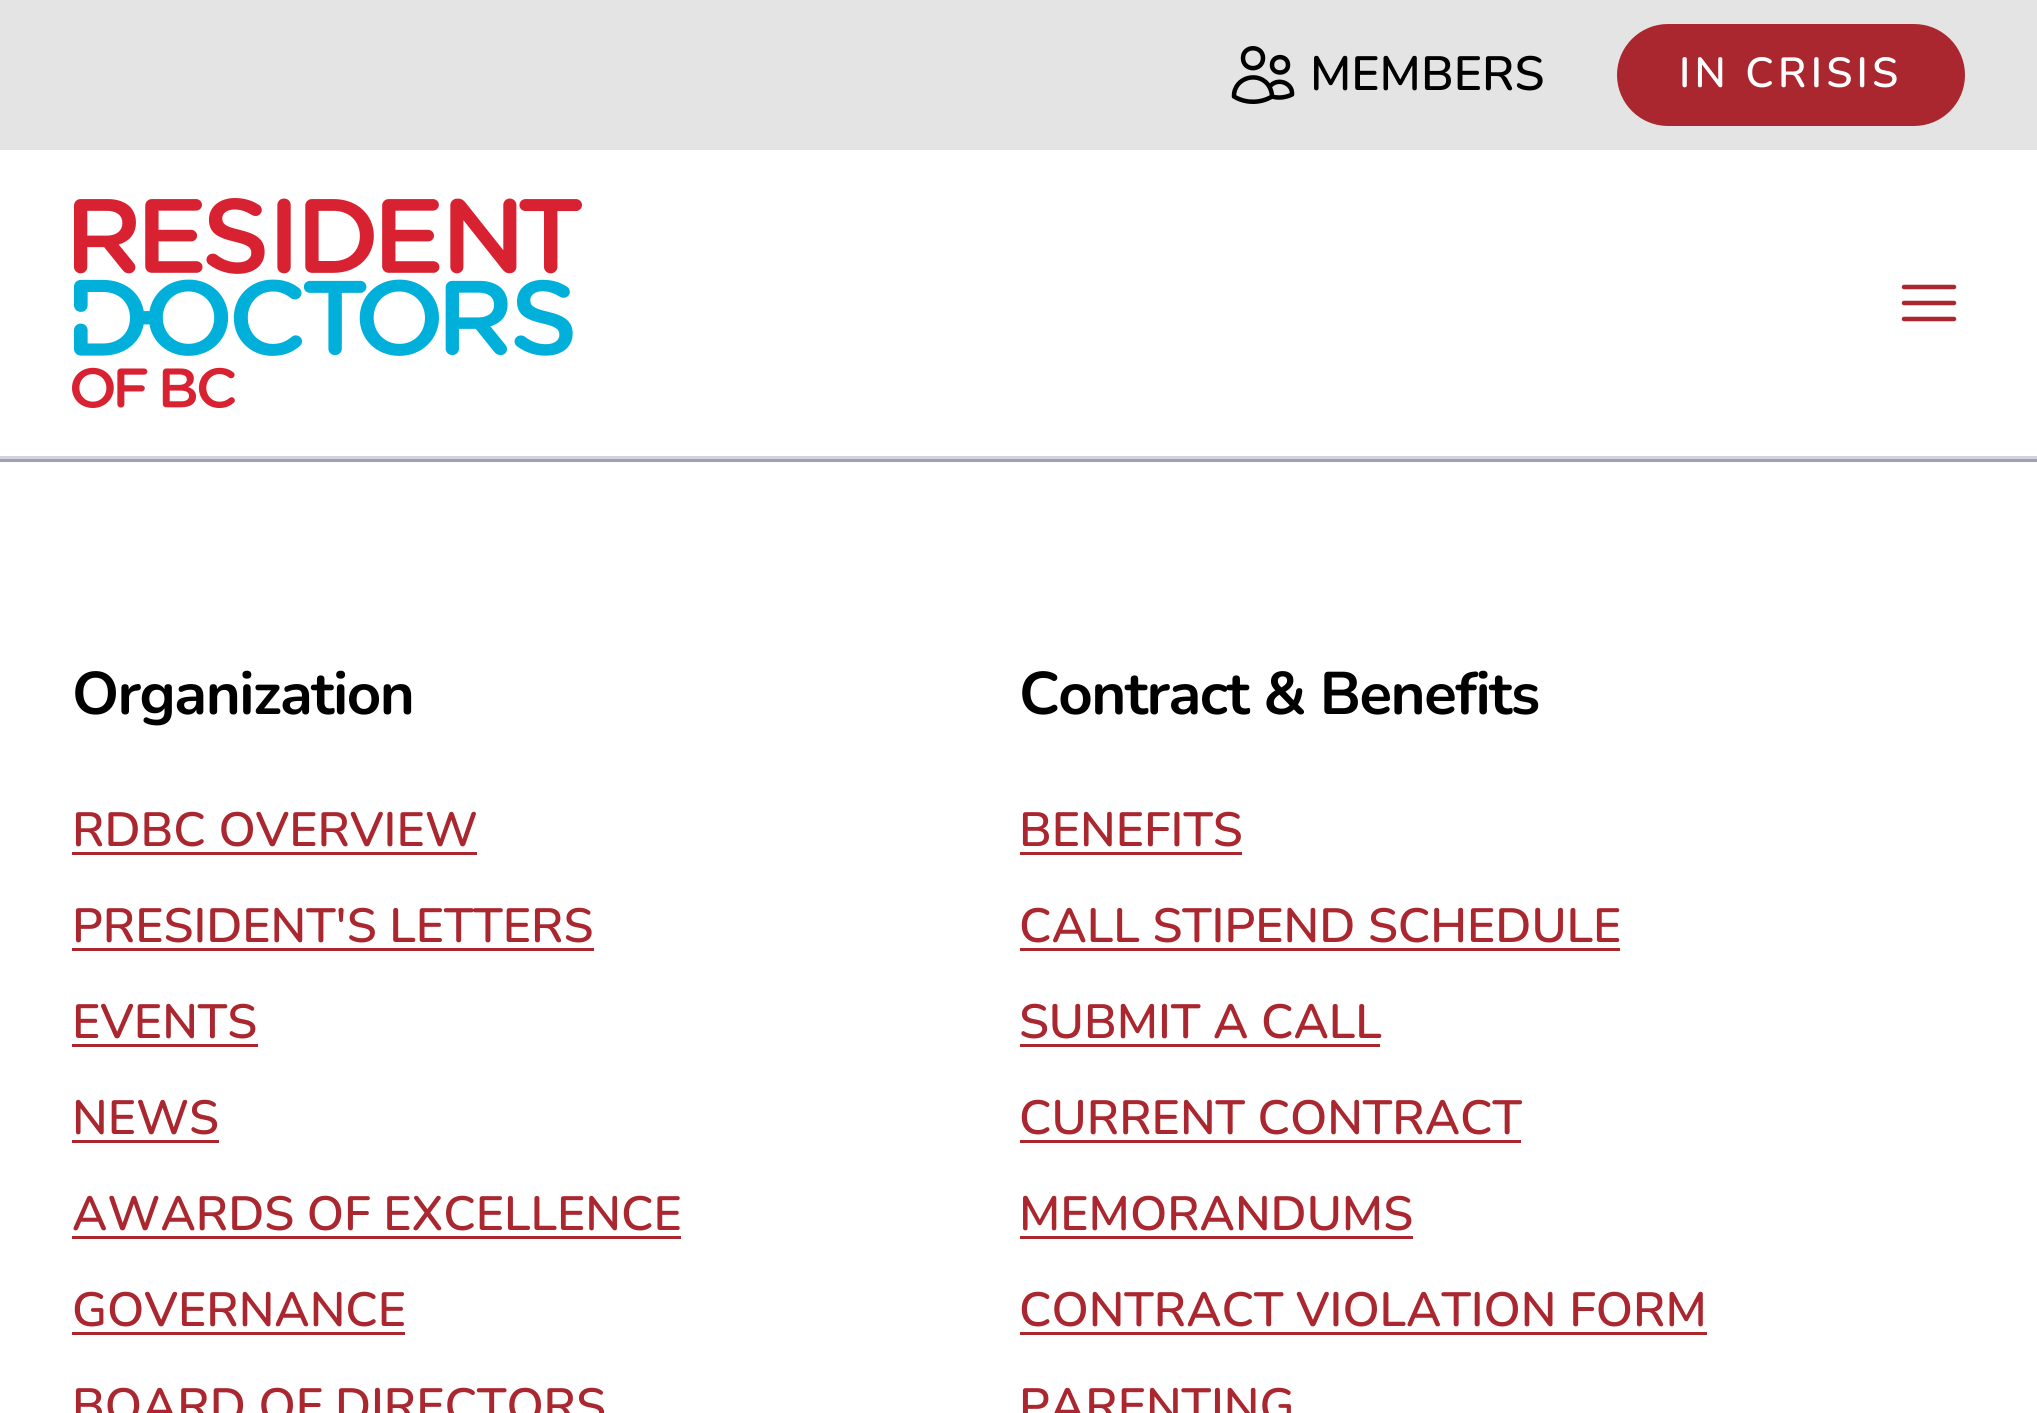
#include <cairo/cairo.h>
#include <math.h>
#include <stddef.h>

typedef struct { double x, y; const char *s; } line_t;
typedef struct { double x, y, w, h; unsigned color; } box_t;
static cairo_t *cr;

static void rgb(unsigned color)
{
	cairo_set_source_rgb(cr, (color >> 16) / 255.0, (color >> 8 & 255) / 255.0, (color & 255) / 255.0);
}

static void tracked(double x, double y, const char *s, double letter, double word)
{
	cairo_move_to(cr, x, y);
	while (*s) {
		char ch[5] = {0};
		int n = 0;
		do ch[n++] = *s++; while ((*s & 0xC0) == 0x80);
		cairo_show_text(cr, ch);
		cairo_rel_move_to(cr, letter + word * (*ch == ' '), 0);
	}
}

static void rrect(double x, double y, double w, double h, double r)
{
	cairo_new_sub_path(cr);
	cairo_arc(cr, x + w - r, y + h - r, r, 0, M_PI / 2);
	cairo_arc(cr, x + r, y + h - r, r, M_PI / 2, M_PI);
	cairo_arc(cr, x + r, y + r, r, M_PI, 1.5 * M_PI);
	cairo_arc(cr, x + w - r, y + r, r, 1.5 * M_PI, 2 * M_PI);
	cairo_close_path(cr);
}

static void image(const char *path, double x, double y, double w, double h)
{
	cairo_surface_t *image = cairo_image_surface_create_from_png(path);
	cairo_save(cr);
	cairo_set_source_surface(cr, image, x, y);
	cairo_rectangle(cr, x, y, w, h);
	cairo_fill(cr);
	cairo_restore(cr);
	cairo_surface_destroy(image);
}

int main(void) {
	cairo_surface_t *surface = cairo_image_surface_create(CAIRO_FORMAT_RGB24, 2037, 1413);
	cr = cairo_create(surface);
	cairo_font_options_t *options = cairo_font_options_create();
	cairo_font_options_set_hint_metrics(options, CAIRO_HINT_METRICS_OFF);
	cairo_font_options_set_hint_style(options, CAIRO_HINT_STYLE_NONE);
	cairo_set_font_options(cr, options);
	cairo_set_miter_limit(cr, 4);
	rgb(0xffffff);
	cairo_paint(cr);
	rgb(0xd1d5db);
	cairo_rectangle(cr, 0, 456, 2037, 3);
	cairo_fill(cr);
	rgb(0xe4e4e5);
	cairo_rectangle(cr, 0, 0, 2037, 150);
	cairo_fill(cr);
	cairo_new_path(cr);
	cairo_move_to(cr, 1272, 96.5);
	cairo_curve_to(cr, 1278.5, 98.5, 1286, 97.5, 1292, 94.5);
	cairo_curve_to(cr, 1293, 82.5, 1276.5, 77, 1269.5, 87);
	cairo_move_to(cr, 1272, 96.5);
	cairo_curve_to(cr, 1272, 93, 1271, 90, 1269.5, 87);
	cairo_move_to(cr, 1272, 96.5);
	cairo_curve_to(cr, 1260.5, 103.5, 1245.5, 103.5, 1234, 96.5);
	cairo_curve_to(cr, 1233.5, 77, 1260, 70, 1269.5, 87);
	cairo_move_to(cr, 1263, 58);
	cairo_curve_to(cr, 1263, 71.5, 1243, 71.5, 1243, 58);
	cairo_curve_to(cr, 1243, 45, 1263, 45, 1263, 58);
	cairo_close_path(cr);
	cairo_move_to(cr, 1288, 65);
	cairo_curve_to(cr, 1288, 75, 1272, 75, 1272, 65);
	cairo_curve_to(cr, 1272, 54.5, 1288, 54.5, 1288, 65);
	cairo_close_path(cr);
	rgb(0x000000);
	cairo_set_line_width(cr, 4.5);
	cairo_set_line_cap(cr, CAIRO_LINE_CAP_ROUND);
	cairo_set_line_join(cr, CAIRO_LINE_JOIN_ROUND);
	cairo_stroke(cr);
	rgb(0xaa272f);
	rrect(1617, 24, 348, 102, 51);
	cairo_fill(cr);
	image("img/1.png", 72, 198, 510, 210);
	cairo_new_path(cr);
	cairo_move_to(cr, 1904, 287);
	cairo_line_to(cr, 1954, 287);
	cairo_move_to(cr, 1904, 303);
	cairo_line_to(cr, 1954, 303);
	cairo_move_to(cr, 1904, 319);
	cairo_line_to(cr, 1954, 319);
	cairo_stroke(cr);
	{
		static const box_t items[] = {
			{0, 459, 2037, 3, 0x9ca3af},
			{72, 852, 405, 3, 0xaa272f},
			{72, 948, 522, 3, 0xaa272f},
			{72, 1044, 186, 3, 0xaa272f},
			{72, 1140, 147, 3, 0xaa272f},
			{72, 1236, 609, 3, 0xaa272f},
			{72, 1332, 333, 3, 0xaa272f},
			{1020, 852, 222, 3, 0xaa272f},
			{1020, 948, 600, 3, 0xaa272f},
			{1020, 1044, 360, 3, 0xaa272f},
			{1020, 1140, 501, 3, 0xaa272f},
			{1020, 1236, 393, 3, 0xaa272f},
			{1020, 1332, 687, 3, 0xaa272f},
		};
		for (size_t i = 0; i < sizeof items / sizeof *items; i++) {
			rgb(items[i].color);
			cairo_rectangle(cr, items[i].x, items[i].y, items[i].w, items[i].h);
			cairo_fill(cr);
		}
	}
	cairo_select_font_face(cr, "Nunito SemiBold", CAIRO_FONT_SLANT_NORMAL, CAIRO_FONT_WEIGHT_NORMAL);
	cairo_set_font_size(cr, 48);
	rgb(0x000000);
	cairo_move_to(cr, 1310, 90);
	cairo_show_text(cr, "MEMBERS");
	cairo_set_font_size(cr, 42);
	rgb(0xffffff);
	tracked(1679, 87, "IN CRISIS", 4.25, 0);
	cairo_select_font_face(cr, "Nunito", CAIRO_FONT_SLANT_NORMAL, CAIRO_FONT_WEIGHT_BOLD);
	cairo_set_font_size(cr, 60);
	rgb(0x000000);
	tracked(72, 714, "Organization", -1.5, 0);
	cairo_select_font_face(cr, "Nunito SemiBold", CAIRO_FONT_SLANT_NORMAL, CAIRO_FONT_WEIGHT_NORMAL);
	cairo_set_font_size(cr, 48);
	rgb(0xaa272f);
	{
		static const line_t items[] = {
			{72, 846, "RDBC OVERVIEW"},
			{72, 942, "PRESIDENT'S LETTERS"},
			{72, 1038, "EVENTS"},
			{72, 1134, "NEWS"},
			{72, 1230, "AWARDS OF EXCELLENCE"},
			{72, 1326, "GOVERNANCE"},
			{72, 1422, "BOARD OF DIRECTORS"},
		};
		for (size_t i = 0; i < sizeof items / sizeof *items; i++) {
			cairo_move_to(cr, items[i].x, items[i].y);
			cairo_show_text(cr, items[i].s);
		}
	}
	cairo_select_font_face(cr, "Nunito", CAIRO_FONT_SLANT_NORMAL, CAIRO_FONT_WEIGHT_BOLD);
	cairo_set_font_size(cr, 60);
	rgb(0x000000);
	tracked(1019, 714, "Contract & Benefits", -1.5, 0);
	cairo_select_font_face(cr, "Nunito SemiBold", CAIRO_FONT_SLANT_NORMAL, CAIRO_FONT_WEIGHT_NORMAL);
	cairo_set_font_size(cr, 48);
	rgb(0xaa272f);
	{
		static const line_t items[] = {
			{1019, 846, "BENEFITS"},
			{1019, 942, "CALL STIPEND SCHEDULE"},
			{1019, 1038, "SUBMIT A CALL"},
			{1019, 1134, "CURRENT CONTRACT"},
			{1019, 1230, "MEMORANDUMS"},
			{1019, 1326, "CONTRACT VIOLATION FORM"},
			{1019, 1422, "PARENTING"},
		};
		for (size_t i = 0; i < sizeof items / sizeof *items; i++) {
			cairo_move_to(cr, items[i].x, items[i].y);
			cairo_show_text(cr, items[i].s);
		}
	}
	cairo_surface_write_to_png(surface, "page.png");
	cairo_font_options_destroy(options);
	cairo_destroy(cr);
	cairo_surface_destroy(surface);
	return 0;
}
